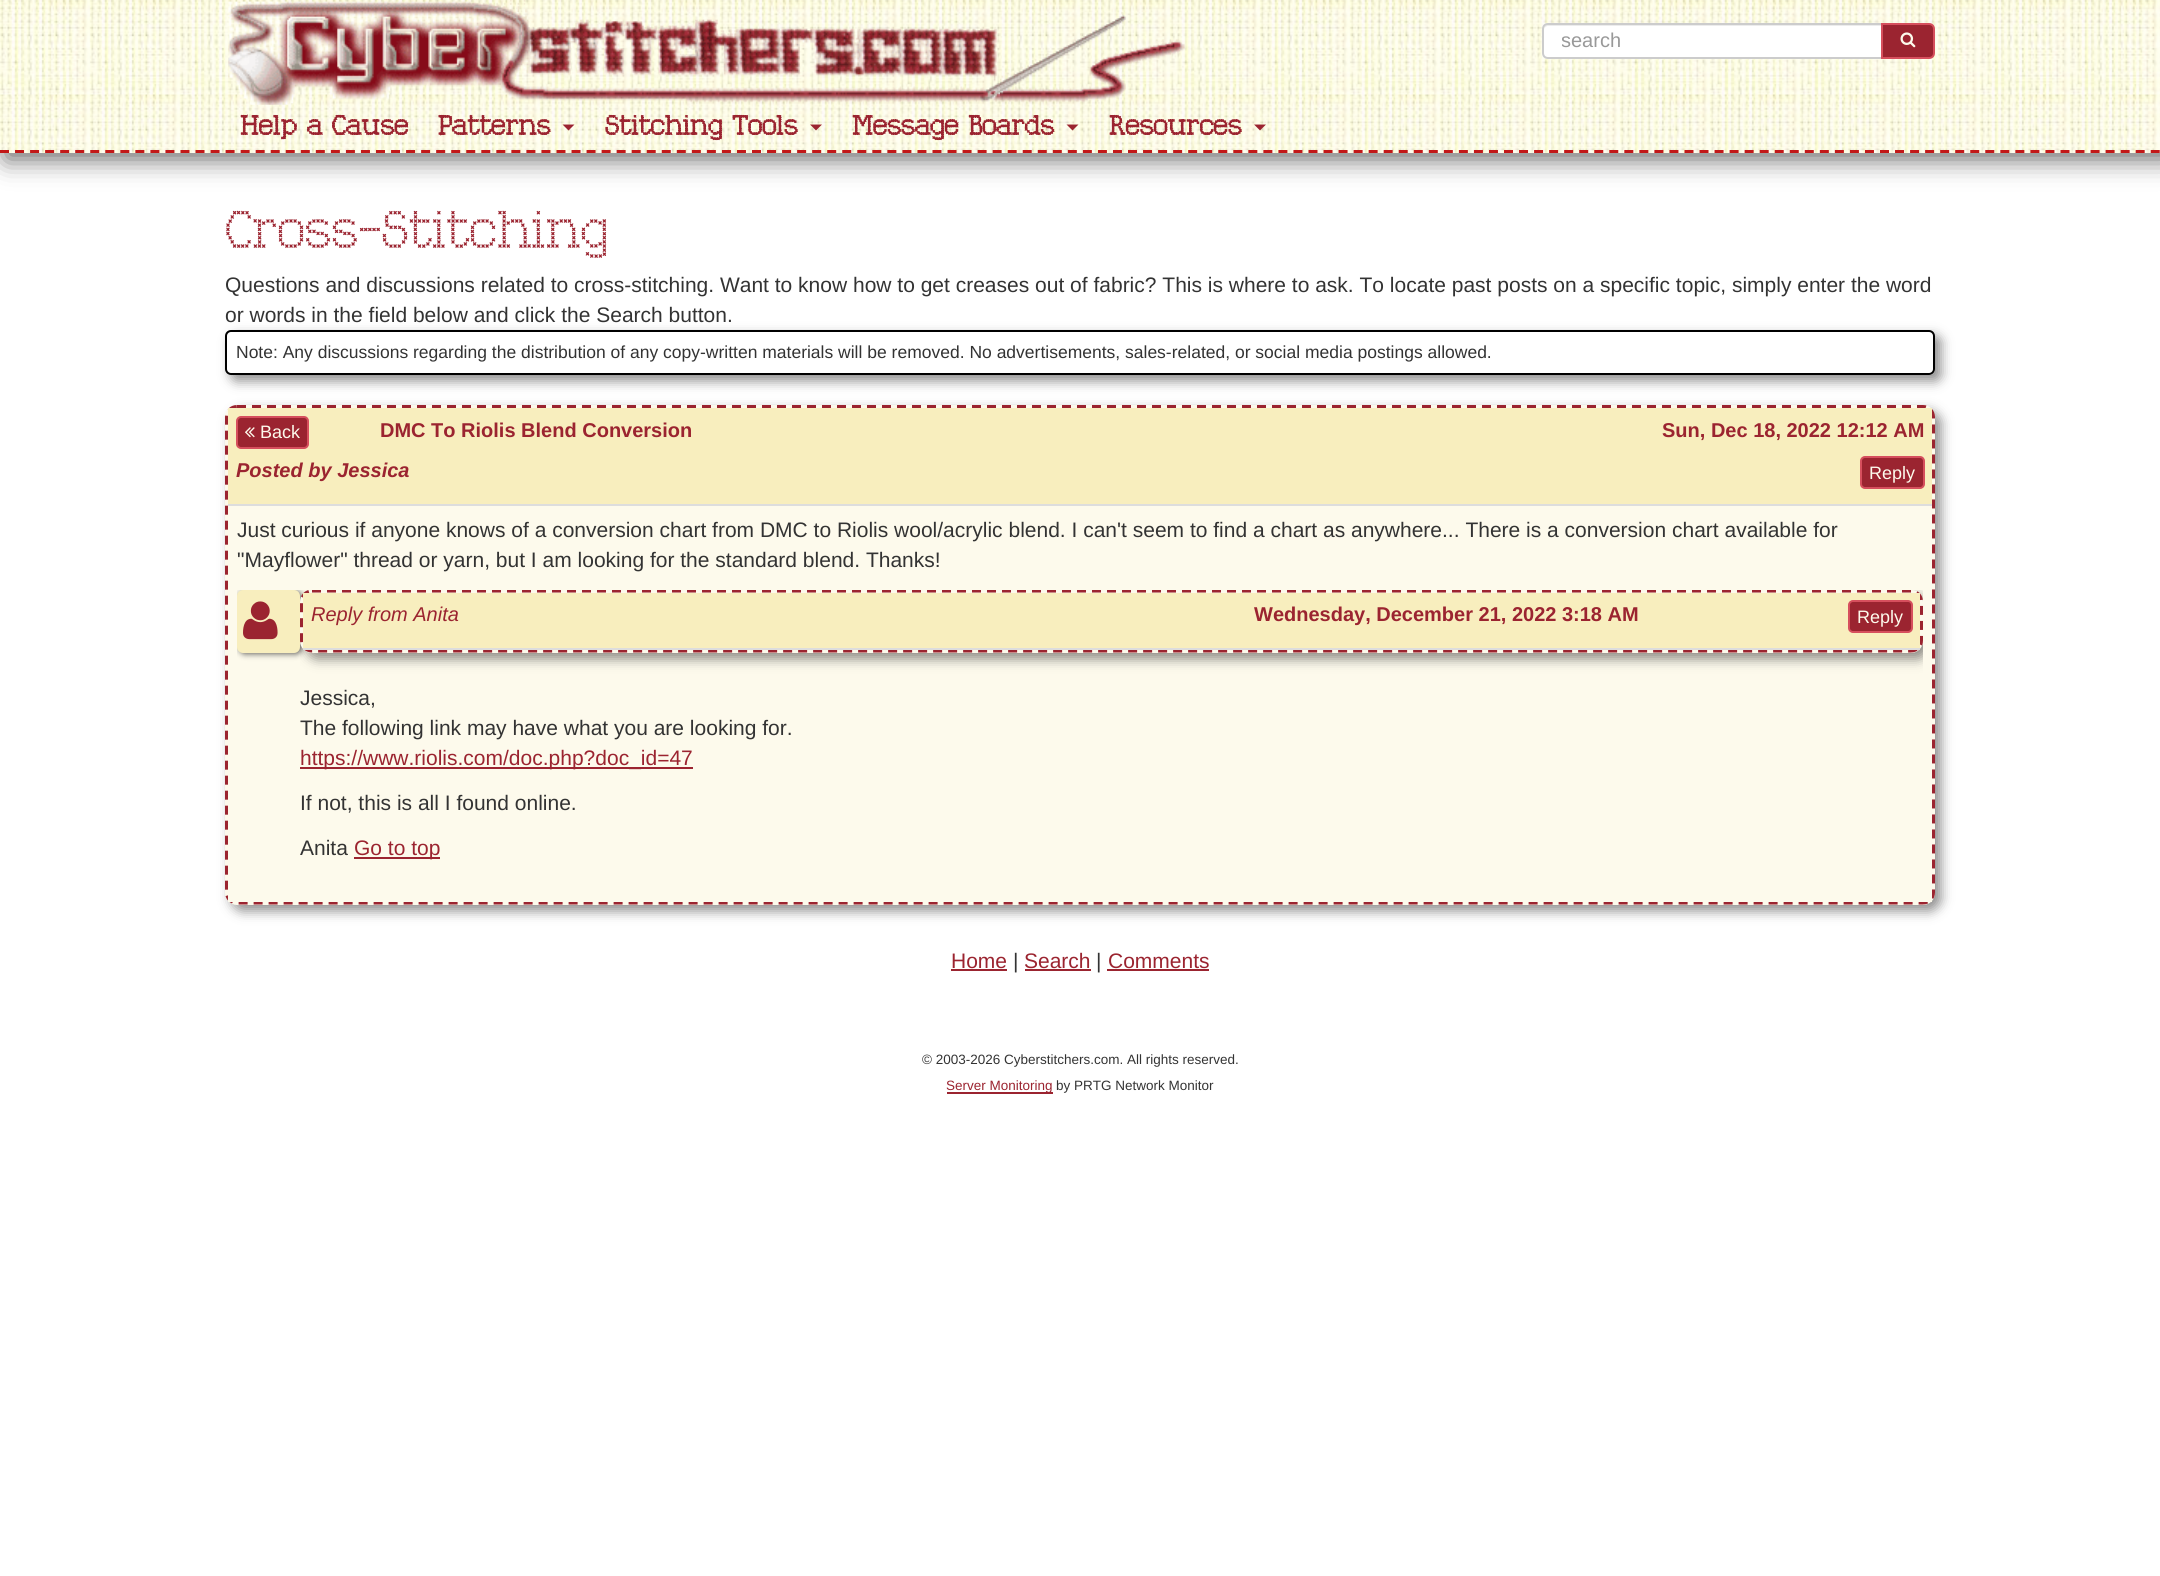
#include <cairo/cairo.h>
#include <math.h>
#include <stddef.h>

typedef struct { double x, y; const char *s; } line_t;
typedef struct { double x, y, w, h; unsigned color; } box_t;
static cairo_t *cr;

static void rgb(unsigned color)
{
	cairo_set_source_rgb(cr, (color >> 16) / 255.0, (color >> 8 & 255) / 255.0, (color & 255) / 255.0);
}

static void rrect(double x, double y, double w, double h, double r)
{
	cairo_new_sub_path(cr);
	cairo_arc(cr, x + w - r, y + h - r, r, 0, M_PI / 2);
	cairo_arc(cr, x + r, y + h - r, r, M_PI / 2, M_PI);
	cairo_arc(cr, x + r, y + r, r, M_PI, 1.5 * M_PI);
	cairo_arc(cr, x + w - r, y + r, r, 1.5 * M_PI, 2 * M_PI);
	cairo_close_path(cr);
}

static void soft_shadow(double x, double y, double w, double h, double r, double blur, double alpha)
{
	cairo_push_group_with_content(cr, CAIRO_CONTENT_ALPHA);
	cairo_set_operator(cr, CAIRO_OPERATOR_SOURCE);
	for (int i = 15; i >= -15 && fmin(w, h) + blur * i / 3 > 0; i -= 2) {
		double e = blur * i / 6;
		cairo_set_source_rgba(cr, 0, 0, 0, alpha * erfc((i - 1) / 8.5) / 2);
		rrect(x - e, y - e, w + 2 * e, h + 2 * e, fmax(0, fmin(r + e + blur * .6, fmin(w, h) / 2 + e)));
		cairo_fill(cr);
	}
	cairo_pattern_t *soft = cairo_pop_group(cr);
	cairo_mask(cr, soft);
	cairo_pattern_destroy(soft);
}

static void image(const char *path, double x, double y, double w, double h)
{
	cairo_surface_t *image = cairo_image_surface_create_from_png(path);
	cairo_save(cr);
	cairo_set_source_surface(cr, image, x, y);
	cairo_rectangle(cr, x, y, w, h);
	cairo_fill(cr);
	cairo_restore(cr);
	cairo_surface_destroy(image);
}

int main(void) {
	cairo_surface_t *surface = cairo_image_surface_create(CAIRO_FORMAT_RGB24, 2160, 1576);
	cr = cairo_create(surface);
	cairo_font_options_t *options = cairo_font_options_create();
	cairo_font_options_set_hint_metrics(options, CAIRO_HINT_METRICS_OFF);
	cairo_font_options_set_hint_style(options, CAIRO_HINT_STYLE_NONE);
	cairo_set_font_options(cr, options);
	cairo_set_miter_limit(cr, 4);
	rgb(0xffffff);
	cairo_paint(cr);
	rgb(0x333232);
	soft_shadow(6, 6, 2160, 153, 0, 13, 0.75);
	image("img/1.png", 0, 0, 2160, 153);
	cairo_new_path(cr);
	cairo_move_to(cr, 0, 151.5);
	cairo_line_to(cr, 2160, 151.5);
	rgb(0xc21818);
	cairo_set_line_width(cr, 3);
	cairo_set_dash(cr, (double[]){9, 6.04}, 2, 0);
	cairo_stroke(cr);
	image("img/2.png", 228, 0, 957, 105);
	rgb(0xffffff);
	cairo_new_path(cr);
	cairo_move_to(cr, 1548, 23);
	cairo_line_to(cr, 1883, 23);
	cairo_line_to(cr, 1883, 59);
	cairo_line_to(cr, 1548, 59);
	cairo_curve_to(cr, 1544.5, 59, 1542, 56.5, 1542, 53);
	cairo_line_to(cr, 1542, 29);
	cairo_curve_to(cr, 1542, 25.5, 1544.5, 23, 1548, 23);
	cairo_close_path(cr);
	cairo_fill(cr);
	rgb(0xececec);
	cairo_new_path(cr);
	cairo_move_to(cr, 1548, 26);
	cairo_line_to(cr, 1881, 26);
	cairo_line_to(cr, 1881, 24);
	cairo_line_to(cr, 1549, 24);
	cairo_curve_to(cr, 1546, 24, 1544, 27, 1544, 30);
	cairo_curve_to(cr, 1544, 28, 1546, 26, 1548, 26);
	cairo_close_path(cr);
	cairo_fill(cr);
	cairo_new_path(cr);
	cairo_move_to(cr, 1548, 24);
	cairo_line_to(cr, 1882, 24);
	cairo_line_to(cr, 1882, 58);
	cairo_line_to(cr, 1548, 58);
	cairo_curve_to(cr, 1545, 58, 1543, 56, 1543, 53);
	cairo_line_to(cr, 1543, 29);
	cairo_curve_to(cr, 1543, 26, 1545, 24, 1548, 24);
	cairo_close_path(cr);
	rgb(0xcccccc);
	cairo_set_line_width(cr, 2);
	cairo_set_dash(cr, NULL, 0, 0);
	cairo_stroke(cr);
	rgb(0x9b2430);
	cairo_new_path(cr);
	cairo_move_to(cr, 1882, 24);
	cairo_line_to(cr, 1929, 24);
	cairo_curve_to(cr, 1932, 24, 1934, 26, 1934, 29);
	cairo_line_to(cr, 1934, 53);
	cairo_curve_to(cr, 1934, 56, 1932, 58, 1929, 58);
	cairo_line_to(cr, 1882, 58);
	cairo_close_path(cr);
	cairo_fill_preserve(cr);
	rgb(0xd64f5d);
	cairo_stroke(cr);
	image("img/3.png", 1900, 32, 16, 16);
	rgb(0x9b2430);
	cairo_new_path(cr);
	cairo_move_to(cr, 562.5, 124.5);
	cairo_line_to(cr, 574.5, 124.5);
	cairo_line_to(cr, 568.5, 130.5);
	cairo_close_path(cr);
	cairo_fill(cr);
	cairo_new_path(cr);
	cairo_move_to(cr, 810, 124.5);
	cairo_line_to(cr, 822, 124.5);
	cairo_line_to(cr, 816, 130.5);
	cairo_close_path(cr);
	cairo_fill(cr);
	cairo_new_path(cr);
	cairo_move_to(cr, 1066.5, 124.5);
	cairo_line_to(cr, 1078.5, 124.5);
	cairo_line_to(cr, 1072.5, 130.5);
	cairo_close_path(cr);
	cairo_fill(cr);
	cairo_new_path(cr);
	cairo_move_to(cr, 1254, 124.5);
	cairo_line_to(cr, 1266, 124.5);
	cairo_line_to(cr, 1260, 130.5);
	cairo_close_path(cr);
	cairo_fill(cr);
	cairo_save(cr);
	cairo_set_fill_rule(cr, CAIRO_FILL_RULE_EVEN_ODD);
	cairo_new_path(cr);
	cairo_move_to(cr, 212, 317);
	cairo_line_to(cr, 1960, 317);
	cairo_line_to(cr, 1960, 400);
	cairo_line_to(cr, 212, 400);
	cairo_close_path(cr);
	cairo_move_to(cr, 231, 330);
	cairo_line_to(cr, 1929, 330);
	cairo_curve_to(cr, 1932.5, 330, 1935, 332.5, 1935, 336);
	cairo_line_to(cr, 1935, 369);
	cairo_curve_to(cr, 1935, 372.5, 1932.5, 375, 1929, 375);
	cairo_line_to(cr, 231, 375);
	cairo_curve_to(cr, 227.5, 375, 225, 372.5, 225, 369);
	cairo_line_to(cr, 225, 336);
	cairo_curve_to(cr, 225, 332.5, 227.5, 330, 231, 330);
	cairo_close_path(cr);
	cairo_clip(cr);
	rgb(0x333232);
	soft_shadow(231, 336, 1710, 45, 6, 6, 0.55);
	cairo_restore(cr);
	rrect(226, 331, 1708, 43, 5);
	rgb(0x000000);
	cairo_stroke(cr);
	rgb(0x333232);
	soft_shadow(231, 411, 1710, 500, 12, 6, 0.55);
	rgb(0xfdfaec);
	rrect(225, 405, 1710, 500, 12);
	cairo_fill(cr);
	cairo_new_path(cr);
	cairo_move_to(cr, 237, 406.5);
	cairo_line_to(cr, 1923, 406.5);
	cairo_curve_to(cr, 1929, 406.5, 1933.5, 411, 1933.5, 417);
	cairo_line_to(cr, 1933.5, 892.5);
	cairo_curve_to(cr, 1933.5, 898.5, 1929, 903, 1923, 903);
	cairo_line_to(cr, 237, 903);
	cairo_curve_to(cr, 231, 903, 226.5, 898.5, 226.5, 892.5);
	cairo_line_to(cr, 226.5, 417);
	cairo_curve_to(cr, 226.5, 411, 231, 406.5, 237, 406.5);
	cairo_close_path(cr);
	rgb(0x9b2430);
	cairo_set_line_width(cr, 3);
	cairo_set_dash(cr, (double[]){9, 6}, 2, 0);
	cairo_stroke(cr);
	rgb(0xf8eebe);
	cairo_rectangle(cr, 228, 408, 1704, 96);
	cairo_fill(cr);
	rgb(0xdddddd);
	cairo_rectangle(cr, 228, 504, 1704, 2);
	cairo_fill(cr);
	rgb(0x9b2430);
	rrect(237, 417, 71, 31, 4);
	cairo_fill_preserve(cr);
	rgb(0xd64f5d);
	cairo_set_line_width(cr, 2);
	cairo_set_dash(cr, NULL, 0, 0);
	cairo_stroke(cr);
	image("img/4.png", 245, 427, 10, 11);
	rgb(0x9b2430);
	rrect(1861, 457, 63, 31, 4);
	cairo_fill_preserve(cr);
	rgb(0xd64f5d);
	cairo_stroke(cr);
	rgb(0xfdfaec);
	cairo_rectangle(cr, 228, 892, 1704, 10);
	cairo_fill(cr);
	cairo_save(cr);
	cairo_rectangle(cr, 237, 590, 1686, 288);
	cairo_clip(cr);
	rgb(0x333232);
	soft_shadow(239, 591, 63, 63, 6, 3, 0.75);
	cairo_restore(cr);
	rgb(0xf8eebe);
	rrect(237, 590, 63, 63, 6);
	cairo_fill(cr);
	image("img/5.png", 243, 601, 35, 39);
	cairo_save(cr);
	cairo_rectangle(cr, 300, 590, 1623, 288);
	cairo_clip(cr);
	rgb(0x333232);
	soft_shadow(306, 596, 1623, 63, 12, 6, 0.55);
	cairo_restore(cr);
	rgb(0xfdfaec);
	rrect(300, 590, 1623, 63, 12);
	cairo_fill(cr);
	cairo_save(cr);
	cairo_rectangle(cr, 300, 590, 1623, 288);
	cairo_clip(cr);
	cairo_new_path(cr);
	cairo_move_to(cr, 312, 591);
	cairo_line_to(cr, 1911, 591);
	cairo_curve_to(cr, 1917, 591, 1921.5, 595.5, 1921.5, 601.5);
	cairo_line_to(cr, 1921.5, 640.5);
	cairo_curve_to(cr, 1921.5, 646.5, 1917, 651, 1911, 651);
	cairo_line_to(cr, 312, 651);
	cairo_curve_to(cr, 306, 651, 301.5, 646.5, 301.5, 640.5);
	cairo_line_to(cr, 301.5, 601.5);
	cairo_curve_to(cr, 301.5, 595.5, 306, 591, 312, 591);
	cairo_close_path(cr);
	rgb(0x9b2430);
	cairo_set_line_width(cr, 3);
	cairo_set_dash(cr, (double[]){9, 6}, 2, 0);
	cairo_stroke(cr);
	cairo_restore(cr);
	rgb(0xf8eebe);
	cairo_rectangle(cr, 303, 593, 1617, 55);
	cairo_fill(cr);
	rgb(0xdddddd);
	cairo_rectangle(cr, 303, 648, 1617, 2);
	cairo_fill(cr);
	rgb(0x9b2430);
	rrect(1849, 601, 63, 31, 4);
	cairo_fill_preserve(cr);
	rgb(0xd64f5d);
	cairo_stroke(cr);
	{
		static const box_t items[] = {
			{300, 767, 393, 2, 0x9b2430},
			{354, 857, 86, 2, 0x9b2430},
			{951, 969, 56, 2, 0x9b2430},
			{1025, 969, 66, 2, 0x9b2430},
			{1107, 969, 102, 2, 0x9b2430},
			{947, 1092, 106, 2, 0x9b2430},
		};
		for (size_t i = 0; i < sizeof items / sizeof *items; i++) {
			rgb(items[i].color);
			cairo_rectangle(cr, items[i].x, items[i].y, items[i].w, items[i].h);
			cairo_fill(cr);
		}
	}
	cairo_save(cr);
	cairo_rectangle(cr, 1562, 30, 301, 23);
	cairo_clip(cr);
	cairo_select_font_face(cr, "Liberation Sans", CAIRO_FONT_SLANT_NORMAL, CAIRO_FONT_WEIGHT_NORMAL);
	cairo_set_font_size(cr, 20);
	rgb(0x999999);
	cairo_move_to(cr, 1561, 47);
	cairo_show_text(cr, "search");
	cairo_restore(cr);
	cairo_select_font_face(cr, "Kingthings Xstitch", CAIRO_FONT_SLANT_NORMAL, CAIRO_FONT_WEIGHT_BOLD);
	cairo_set_font_size(cr, 28);
	{
		static const line_t items[] = {
			{240, 135, "Help a Cause"},
			{438, 135, "Patterns"},
			{605, 135, "Stitching Tools"},
			{852, 135, "Message Boards"},
			{1109, 135, "Resources"},
		};
		for (size_t i = 0; i < sizeof items / sizeof *items; i++) {
			cairo_move_to(cr, items[i].x, items[i].y);
			cairo_show_text(cr, items[i].s);
		}
	}
	cairo_select_font_face(cr, "Kingthings Xstitch Thin", CAIRO_FONT_SLANT_NORMAL, CAIRO_FONT_WEIGHT_NORMAL);
	cairo_set_font_size(cr, 54);
	cairo_move_to(cr, 225, 248);
	cairo_show_text(cr, "Cross-Stitching");
	cairo_select_font_face(cr, "Liberation Sans", CAIRO_FONT_SLANT_NORMAL, CAIRO_FONT_WEIGHT_NORMAL);
	cairo_set_font_size(cr, 21);
	rgb(0x333333);
	cairo_move_to(cr, 225, 292);
	cairo_show_text(cr, "Questions and discussions related to cross-stitching. Want to know how to get creases out of fabric? This is where to ask. To locate past posts on a specific topic, simply enter the word");
	cairo_move_to(cr, 225, 322);
	cairo_show_text(cr, "or words in the field below and click the Search button.");
	cairo_set_font_size(cr, 17.5);
	cairo_move_to(cr, 236, 358);
	cairo_show_text(cr, "Note: Any discussions regarding the distribution of any copy-written materials will be removed. No advertisements, sales-related, or social media postings allowed.");
	cairo_set_font_size(cr, 18);
	rgb(0xfdfaec);
	cairo_move_to(cr, 260, 438);
	cairo_show_text(cr, "Back");
	cairo_select_font_face(cr, "Liberation Sans", CAIRO_FONT_SLANT_NORMAL, CAIRO_FONT_WEIGHT_BOLD);
	cairo_set_font_size(cr, 20);
	rgb(0x9b2430);
	cairo_move_to(cr, 380, 437);
	cairo_show_text(cr, "DMC To Riolis Blend Conversion");
	cairo_move_to(cr, 1662, 437);
	cairo_show_text(cr, "Sun, Dec 18, 2022 12:12 AM");
	cairo_select_font_face(cr, "Liberation Sans", CAIRO_FONT_SLANT_ITALIC, CAIRO_FONT_WEIGHT_BOLD);
	cairo_move_to(cr, 236, 477);
	cairo_show_text(cr, "Posted by Jessica");
	cairo_select_font_face(cr, "Liberation Sans", CAIRO_FONT_SLANT_NORMAL, CAIRO_FONT_WEIGHT_NORMAL);
	cairo_set_font_size(cr, 18);
	rgb(0xfdfaec);
	cairo_move_to(cr, 1869, 479);
	cairo_show_text(cr, "Reply");
	cairo_set_font_size(cr, 21);
	rgb(0x333333);
	cairo_move_to(cr, 237, 537);
	cairo_show_text(cr, "Just curious if anyone knows of a conversion chart from DMC to Riolis wool/acrylic blend. I can't seem to find a chart as anywhere... There is a conversion chart available for");
	cairo_move_to(cr, 237, 567);
	cairo_show_text(cr, "\"Mayflower\" thread or yarn, but I am looking for the standard blend. Thanks!");
	cairo_select_font_face(cr, "Liberation Sans", CAIRO_FONT_SLANT_ITALIC, CAIRO_FONT_WEIGHT_NORMAL);
	cairo_set_font_size(cr, 20);
	rgb(0x9b2430);
	cairo_move_to(cr, 311, 621);
	cairo_show_text(cr, "Reply from Anita");
	cairo_select_font_face(cr, "Liberation Sans", CAIRO_FONT_SLANT_NORMAL, CAIRO_FONT_WEIGHT_BOLD);
	cairo_move_to(cr, 1254, 621);
	cairo_show_text(cr, "Wednesday, December 21, 2022 3:18 AM");
	cairo_select_font_face(cr, "Liberation Sans", CAIRO_FONT_SLANT_NORMAL, CAIRO_FONT_WEIGHT_NORMAL);
	cairo_set_font_size(cr, 18);
	rgb(0xfdfaec);
	cairo_move_to(cr, 1857, 623);
	cairo_show_text(cr, "Reply");
	cairo_set_font_size(cr, 21);
	rgb(0x333333);
	cairo_move_to(cr, 300, 705);
	cairo_show_text(cr, "Jessica,");
	cairo_move_to(cr, 300, 735);
	cairo_show_text(cr, "The following link may have what you are looking for.");
	rgb(0x9b2430);
	cairo_move_to(cr, 300, 765);
	cairo_show_text(cr, "https://www.riolis.com/doc.php?doc_id=47");
	rgb(0x333333);
	cairo_move_to(cr, 300, 810);
	cairo_show_text(cr, "If not, this is all I found online.");
	cairo_move_to(cr, 300, 855);
	cairo_show_text(cr, "Anita");
	rgb(0x9b2430);
	cairo_move_to(cr, 354, 855);
	cairo_show_text(cr, "Go to top");
	cairo_move_to(cr, 951, 968);
	cairo_show_text(cr, "Home");
	rgb(0x333333);
	cairo_move_to(cr, 1013, 968);
	cairo_show_text(cr, "|");
	rgb(0x9b2430);
	cairo_move_to(cr, 1024, 968);
	cairo_show_text(cr, "Search");
	rgb(0x333333);
	cairo_move_to(cr, 1096, 968);
	cairo_show_text(cr, "|");
	rgb(0x9b2430);
	cairo_move_to(cr, 1108, 968);
	cairo_show_text(cr, "Comments");
	cairo_set_font_size(cr, 13.5);
	rgb(0x333333);
	cairo_move_to(cr, 922, 1064);
	cairo_show_text(cr, "© 2003-2026 Cyberstitchers.com. All rights reserved.");
	rgb(0x9b2430);
	cairo_move_to(cr, 946, 1090);
	cairo_show_text(cr, "Server Monitoring");
	rgb(0x333333);
	cairo_move_to(cr, 1056, 1090);
	cairo_show_text(cr, "by PRTG Network Monitor");
	cairo_surface_write_to_png(surface, "page.png");
	cairo_font_options_destroy(options);
	cairo_destroy(cr);
	cairo_surface_destroy(surface);
	return 0;
}
